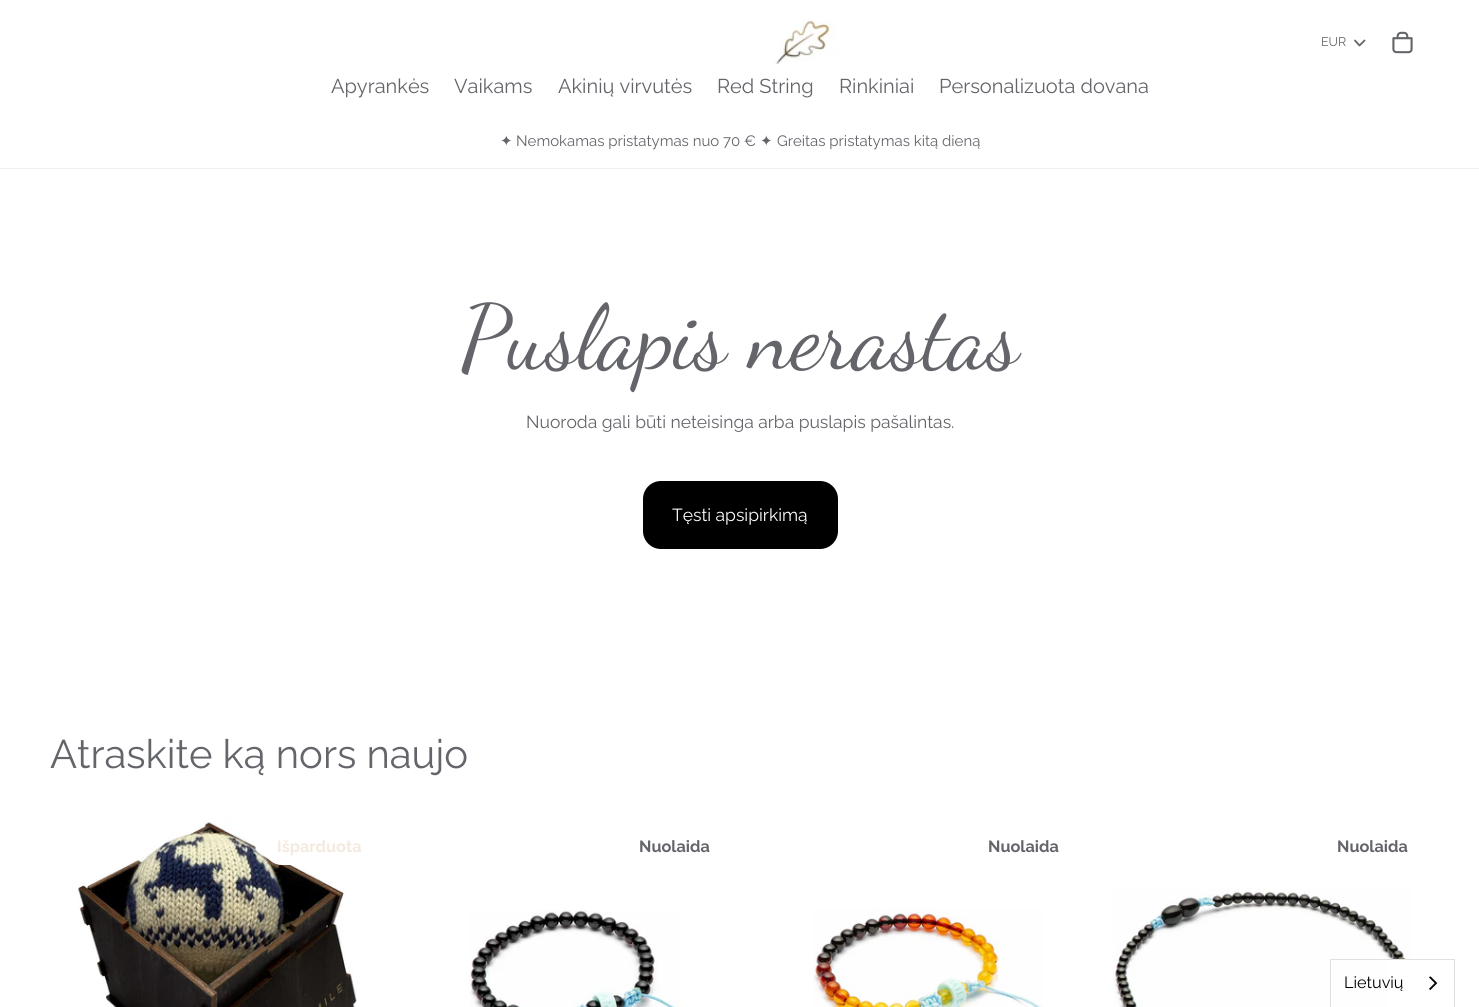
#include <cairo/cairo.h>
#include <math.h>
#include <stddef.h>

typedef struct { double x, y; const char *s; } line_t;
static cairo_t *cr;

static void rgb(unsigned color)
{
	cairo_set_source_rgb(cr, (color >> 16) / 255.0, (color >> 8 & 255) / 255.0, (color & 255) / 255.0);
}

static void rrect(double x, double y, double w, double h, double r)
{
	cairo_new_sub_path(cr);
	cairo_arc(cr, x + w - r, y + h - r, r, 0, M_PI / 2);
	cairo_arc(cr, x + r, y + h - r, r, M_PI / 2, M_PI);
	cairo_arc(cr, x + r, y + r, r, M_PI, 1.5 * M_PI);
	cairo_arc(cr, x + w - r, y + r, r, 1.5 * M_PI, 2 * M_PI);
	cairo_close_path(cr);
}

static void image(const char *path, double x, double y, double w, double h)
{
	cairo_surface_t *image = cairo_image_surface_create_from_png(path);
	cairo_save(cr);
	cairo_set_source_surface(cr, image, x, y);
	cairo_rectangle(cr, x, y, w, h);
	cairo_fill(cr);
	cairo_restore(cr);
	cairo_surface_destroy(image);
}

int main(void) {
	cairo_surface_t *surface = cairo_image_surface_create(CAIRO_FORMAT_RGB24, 1479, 1007);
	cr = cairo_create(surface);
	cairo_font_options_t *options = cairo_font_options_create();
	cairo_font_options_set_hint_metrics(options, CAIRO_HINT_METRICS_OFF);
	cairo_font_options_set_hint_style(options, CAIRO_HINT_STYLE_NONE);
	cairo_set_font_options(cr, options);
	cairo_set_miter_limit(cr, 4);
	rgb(0xffffff);
	cairo_paint(cr);
	image("img/1.png", 774, 20, 63, 44);
	cairo_new_path(cr);
	cairo_move_to(cr, 1364.5, 40.5);
	cairo_line_to(cr, 1359.5, 45.5);
	cairo_line_to(cr, 1355, 40.5);
	rgb(0x63656a);
	cairo_set_line_width(cr, 1.8);
	cairo_set_line_cap(cr, CAIRO_LINE_CAP_ROUND);
	cairo_set_line_join(cr, CAIRO_LINE_JOIN_ROUND);
	cairo_stroke(cr);
	image("img/2.png", 1392, 31, 21, 23);
	rgb(0xf0f0f0);
	cairo_rectangle(cr, 0, 168, 1479, 1);
	cairo_fill(cr);
	rgb(0x000000);
	rrect(643, 481, 195, 68, 18);
	cairo_fill(cr);
	image("img/3.png", 76, 819, 281, 188);
	rgb(0xffffff);
	rrect(264, 829, 110, 36, 18);
	cairo_fill(cr);
	image("img/4.png", 469, 910, 212, 97);
	image("img/5.png", 813, 909, 230, 98);
	image("img/6.png", 1113, 887, 298, 120);
	cairo_rectangle(cr, 1388, 960, 23, 47);
	cairo_fill(cr);
	cairo_rectangle(cr, 1330.5, 959.5, 124, 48);
	rgb(0xe0e0e0);
	cairo_set_line_width(cr, 1);
	cairo_set_line_cap(cr, CAIRO_LINE_CAP_BUTT);
	cairo_set_line_join(cr, CAIRO_LINE_JOIN_MITER);
	cairo_stroke(cr);
	image("img/7.png", 1429, 976, 9, 14);
	cairo_select_font_face(cr, "Raleway", CAIRO_FONT_SLANT_NORMAL, CAIRO_FONT_WEIGHT_NORMAL);
	cairo_set_font_size(cr, 12.5);
	rgb(0x63656a);
	cairo_move_to(cr, 1321, 46);
	cairo_show_text(cr, "EUR");
	cairo_set_font_size(cr, 20);
	{
		static const line_t items[] = {
			{331, 93, "Apyrankės"},
			{454, 93, "Vaikams"},
			{558, 93, "Akinių virvutės"},
			{717, 93, "Red String"},
			{839, 93, "Rinkiniai"},
			{939, 93, "Personalizuota dovana"},
		};
		for (size_t i = 0; i < sizeof items / sizeof *items; i++) {
			cairo_move_to(cr, items[i].x, items[i].y);
			cairo_show_text(cr, items[i].s);
		}
	}
	cairo_select_font_face(cr, "DejaVu Sans", CAIRO_FONT_SLANT_NORMAL, CAIRO_FONT_WEIGHT_NORMAL);
	cairo_set_font_size(cr, 15);
	cairo_move_to(cr, 500, 146);
	cairo_show_text(cr, "✦");
	cairo_select_font_face(cr, "Raleway", CAIRO_FONT_SLANT_NORMAL, CAIRO_FONT_WEIGHT_NORMAL);
	cairo_move_to(cr, 516, 146);
	cairo_show_text(cr, "Nemokamas pristatymas nuo 70 €");
	cairo_select_font_face(cr, "DejaVu Sans", CAIRO_FONT_SLANT_NORMAL, CAIRO_FONT_WEIGHT_NORMAL);
	cairo_move_to(cr, 760, 146);
	cairo_show_text(cr, "✦");
	cairo_select_font_face(cr, "Raleway", CAIRO_FONT_SLANT_NORMAL, CAIRO_FONT_WEIGHT_NORMAL);
	cairo_move_to(cr, 777, 146);
	cairo_show_text(cr, "Greitas pristatymas kitą dieną");
	cairo_select_font_face(cr, "Dancing Script", CAIRO_FONT_SLANT_NORMAL, CAIRO_FONT_WEIGHT_NORMAL);
	cairo_set_font_size(cr, 90);
	cairo_move_to(cr, 460, 367);
	cairo_show_text(cr, "Puslapis nerastas");
	cairo_select_font_face(cr, "Raleway", CAIRO_FONT_SLANT_NORMAL, CAIRO_FONT_WEIGHT_NORMAL);
	cairo_set_font_size(cr, 17.5);
	cairo_move_to(cr, 526, 428);
	cairo_show_text(cr, "Nuoroda gali būti neteisinga arba puslapis pašalintas.");
	rgb(0xffffff);
	cairo_move_to(cr, 672, 521);
	cairo_show_text(cr, "Tęsti apsipirkimą");
	cairo_set_font_size(cr, 40);
	rgb(0x63656a);
	cairo_move_to(cr, 50, 768);
	cairo_show_text(cr, "Atraskite ką nors naujo");
	cairo_select_font_face(cr, "Raleway", CAIRO_FONT_SLANT_NORMAL, CAIRO_FONT_WEIGHT_BOLD);
	cairo_set_font_size(cr, 16.25);
	rgb(0xf4e9de);
	cairo_move_to(cr, 277, 852);
	cairo_show_text(cr, "Išparduota");
	rgb(0x63656a);
	{
		static const line_t items[] = {
			{639, 852, "Nuolaida"},
			{988, 852, "Nuolaida"},
			{1337, 852, "Nuolaida"},
		};
		for (size_t i = 0; i < sizeof items / sizeof *items; i++) {
			cairo_move_to(cr, items[i].x, items[i].y);
			cairo_show_text(cr, items[i].s);
		}
	}
	cairo_select_font_face(cr, "Raleway", CAIRO_FONT_SLANT_NORMAL, CAIRO_FONT_WEIGHT_NORMAL);
	rgb(0x000000);
	cairo_move_to(cr, 1344, 988);
	cairo_show_text(cr, "Lietuvių");
	cairo_surface_write_to_png(surface, "page.png");
	cairo_font_options_destroy(options);
	cairo_destroy(cr);
	cairo_surface_destroy(surface);
	return 0;
}
